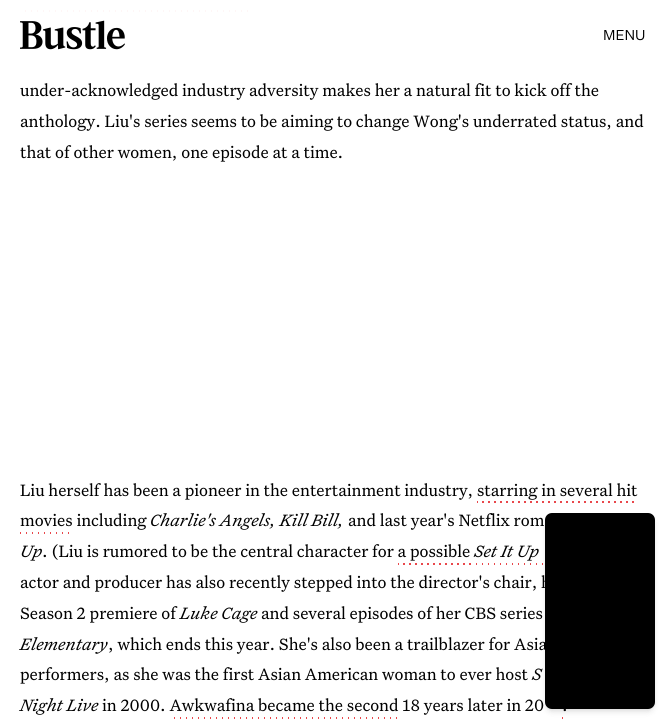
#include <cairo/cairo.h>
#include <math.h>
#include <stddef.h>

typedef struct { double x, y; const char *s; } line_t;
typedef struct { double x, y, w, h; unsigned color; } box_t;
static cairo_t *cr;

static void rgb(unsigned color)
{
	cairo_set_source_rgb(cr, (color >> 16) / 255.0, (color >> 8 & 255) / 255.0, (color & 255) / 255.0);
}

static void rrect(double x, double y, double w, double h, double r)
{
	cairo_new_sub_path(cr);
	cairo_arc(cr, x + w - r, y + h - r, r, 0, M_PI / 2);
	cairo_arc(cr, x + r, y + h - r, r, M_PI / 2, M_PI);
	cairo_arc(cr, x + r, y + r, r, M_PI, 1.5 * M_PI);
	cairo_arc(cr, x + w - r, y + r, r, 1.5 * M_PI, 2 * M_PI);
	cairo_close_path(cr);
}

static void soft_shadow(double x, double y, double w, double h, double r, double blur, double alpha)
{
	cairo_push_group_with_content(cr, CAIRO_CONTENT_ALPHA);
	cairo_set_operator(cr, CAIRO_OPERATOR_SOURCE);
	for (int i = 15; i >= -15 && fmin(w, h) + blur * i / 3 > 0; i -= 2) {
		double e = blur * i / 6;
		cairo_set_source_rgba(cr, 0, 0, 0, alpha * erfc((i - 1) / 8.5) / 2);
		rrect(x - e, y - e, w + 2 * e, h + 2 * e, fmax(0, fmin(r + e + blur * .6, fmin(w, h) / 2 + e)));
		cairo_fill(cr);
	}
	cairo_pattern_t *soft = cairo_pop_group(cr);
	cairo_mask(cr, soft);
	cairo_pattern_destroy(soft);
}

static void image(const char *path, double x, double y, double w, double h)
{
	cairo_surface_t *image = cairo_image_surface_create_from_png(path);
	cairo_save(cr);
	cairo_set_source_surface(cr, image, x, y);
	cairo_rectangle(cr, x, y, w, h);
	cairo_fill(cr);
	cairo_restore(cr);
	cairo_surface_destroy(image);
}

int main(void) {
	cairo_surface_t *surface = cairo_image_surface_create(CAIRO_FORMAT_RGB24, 665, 719);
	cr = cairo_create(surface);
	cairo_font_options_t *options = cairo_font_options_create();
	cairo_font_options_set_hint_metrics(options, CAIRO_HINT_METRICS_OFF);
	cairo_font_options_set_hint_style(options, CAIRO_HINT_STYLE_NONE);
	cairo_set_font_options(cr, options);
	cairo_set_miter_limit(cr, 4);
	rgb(0xffffff);
	cairo_paint(cr);
	image("img/1.png", 20, 20, 105, 30);
	image("img/2.png", 25, 10, 223, 2);
	image("img/3.png", 477, 501, 157, 2);
	{
		static const box_t items[] = {
			{20, 532, 1, 2, 0xe9474b},
			{26, 532, 1, 2, 0xe9474b},
			{32, 532, 1, 2, 0xe9474b},
			{38, 532, 1, 2, 0xe9474b},
			{44, 532, 1, 2, 0xe9474b},
			{50, 532, 1, 2, 0xe9474b},
			{56, 532, 1, 2, 0xe9474b},
			{62, 532, 1, 2, 0xe9474b},
			{68, 532, 1, 2, 0xe9474b},
			{398, 563, 1, 2, 0xe9474b},
			{403, 563, 2, 2, 0xe9474b},
			{409, 563, 2, 2, 0xe9474b},
			{415, 563, 2, 2, 0xe9474b},
			{421, 563, 2, 2, 0xe9474b},
			{427, 563, 2, 2, 0xe9474b},
			{433, 563, 2, 2, 0xe9474b},
			{439, 563, 2, 2, 0xe9474b},
			{445, 563, 2, 2, 0xe9474b},
			{451, 563, 2, 2, 0xe9474b},
			{457, 563, 2, 2, 0xe9474b},
			{463, 563, 2, 2, 0xe9474b},
			{469, 563, 2, 2, 0xe9474b},
			{476, 563, 1, 2, 0xe9474b},
			{482, 563, 1, 2, 0xe9474b},
			{488, 563, 1, 2, 0xe9474b},
			{494, 563, 1, 2, 0xe9474b},
			{500, 563, 1, 2, 0xe9474b},
			{506, 563, 1, 2, 0xe9474b},
			{512, 563, 1, 2, 0xe9474b},
			{518, 563, 1, 2, 0xe9474b},
			{524, 563, 1, 2, 0xe9474b},
			{530, 563, 1, 2, 0xe9474b},
			{536, 563, 1, 2, 0xe9474b},
			{542, 563, 1, 2, 0xe9474b},
			{562, 717, 1, 2, 0xe9474b},
		};
		for (size_t i = 0; i < sizeof items / sizeof *items; i++) {
			rgb(items[i].color);
			cairo_rectangle(cr, items[i].x, items[i].y, items[i].w, items[i].h);
			cairo_fill(cr);
		}
	}
	image("img/4.png", 174, 717, 223, 2);
	rgb(0x000000);
	soft_shadow(547, 517, 106, 192, 5, 2, 0.1);
	soft_shadow(546, 518, 108, 194, 6, 3, 0.1);
	rgb(0x000000);
	rrect(545, 513, 110, 196, 7);
	cairo_fill(cr);
	cairo_select_font_face(cr, "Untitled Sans", CAIRO_FONT_SLANT_NORMAL, CAIRO_FONT_WEIGHT_NORMAL);
	cairo_set_font_size(cr, 14);
	cairo_move_to(cr, 603, 40);
	cairo_show_text(cr, "MENU");
	cairo_select_font_face(cr, "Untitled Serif", CAIRO_FONT_SLANT_NORMAL, CAIRO_FONT_WEIGHT_NORMAL);
	cairo_set_font_size(cr, 17.6);
	{
		static const line_t items[] = {
			{20, 96, "under-acknowledged industry adversity makes her a natural fit to kick off the"},
			{20, 127, "anthology. Liu's series seems to be aiming to change Wong's underrated status, and"},
			{20, 158, "that of other women, one episode at a time."},
			{20, 496, "Liu herself has been a pioneer in the entertainment industry, starring in several hit"},
			{20, 526, "movies including"},
		};
		for (size_t i = 0; i < sizeof items / sizeof *items; i++) {
			cairo_move_to(cr, items[i].x, items[i].y);
			cairo_show_text(cr, items[i].s);
		}
	}
	cairo_select_font_face(cr, "Untitled Serif", CAIRO_FONT_SLANT_ITALIC, CAIRO_FONT_WEIGHT_NORMAL);
	cairo_move_to(cr, 150, 526);
	cairo_show_text(cr, "Charlie's Angels, Kill Bill,");
	cairo_select_font_face(cr, "Untitled Serif", CAIRO_FONT_SLANT_NORMAL, CAIRO_FONT_WEIGHT_NORMAL);
	cairo_move_to(cr, 348, 526);
	cairo_show_text(cr, "and last year's Netflix rom");
	cairo_select_font_face(cr, "Untitled Serif", CAIRO_FONT_SLANT_ITALIC, CAIRO_FONT_WEIGHT_NORMAL);
	cairo_move_to(cr, 20, 557);
	cairo_show_text(cr, "Up");
	cairo_select_font_face(cr, "Untitled Serif", CAIRO_FONT_SLANT_NORMAL, CAIRO_FONT_WEIGHT_NORMAL);
	cairo_move_to(cr, 42, 557);
	cairo_show_text(cr, ". (Liu is rumored to be the central character for a possible");
	cairo_select_font_face(cr, "Untitled Serif", CAIRO_FONT_SLANT_ITALIC, CAIRO_FONT_WEIGHT_NORMAL);
	cairo_move_to(cr, 474, 557);
	cairo_show_text(cr, "Set It Up");
	cairo_select_font_face(cr, "Untitled Serif", CAIRO_FONT_SLANT_NORMAL, CAIRO_FONT_WEIGHT_NORMAL);
	cairo_move_to(cr, 20, 588);
	cairo_show_text(cr, "actor and producer has also recently stepped into the director's chair, h");
	cairo_move_to(cr, 20, 619);
	cairo_show_text(cr, "Season 2 premiere of");
	cairo_select_font_face(cr, "Untitled Serif", CAIRO_FONT_SLANT_ITALIC, CAIRO_FONT_WEIGHT_NORMAL);
	cairo_move_to(cr, 180, 619);
	cairo_show_text(cr, "Luke Cage");
	cairo_select_font_face(cr, "Untitled Serif", CAIRO_FONT_SLANT_NORMAL, CAIRO_FONT_WEIGHT_NORMAL);
	cairo_move_to(cr, 261, 619);
	cairo_show_text(cr, "and several episodes of her CBS series");
	cairo_select_font_face(cr, "Untitled Serif", CAIRO_FONT_SLANT_ITALIC, CAIRO_FONT_WEIGHT_NORMAL);
	cairo_move_to(cr, 20, 650);
	cairo_show_text(cr, "Elementary");
	cairo_select_font_face(cr, "Untitled Serif", CAIRO_FONT_SLANT_NORMAL, CAIRO_FONT_WEIGHT_NORMAL);
	cairo_move_to(cr, 108, 650);
	cairo_show_text(cr, ", which ends this year. She's also been a trailblazer for Asia");
	cairo_move_to(cr, 20, 680);
	cairo_show_text(cr, "performers, as she was the first Asian American woman to ever host");
	cairo_select_font_face(cr, "Untitled Serif", CAIRO_FONT_SLANT_ITALIC, CAIRO_FONT_WEIGHT_NORMAL);
	cairo_move_to(cr, 532, 680);
	cairo_show_text(cr, "S");
	cairo_move_to(cr, 20, 711);
	cairo_show_text(cr, "Night Live");
	cairo_select_font_face(cr, "Untitled Serif", CAIRO_FONT_SLANT_NORMAL, CAIRO_FONT_WEIGHT_NORMAL);
	cairo_move_to(cr, 102, 711);
	cairo_show_text(cr, "in 2000. Awkwafina became the second 18 years later in 20");
	cairo_move_to(cr, 562, 711);
	cairo_show_text(cr, ".");
	cairo_surface_write_to_png(surface, "page.png");
	cairo_font_options_destroy(options);
	cairo_destroy(cr);
	cairo_surface_destroy(surface);
	return 0;
}
